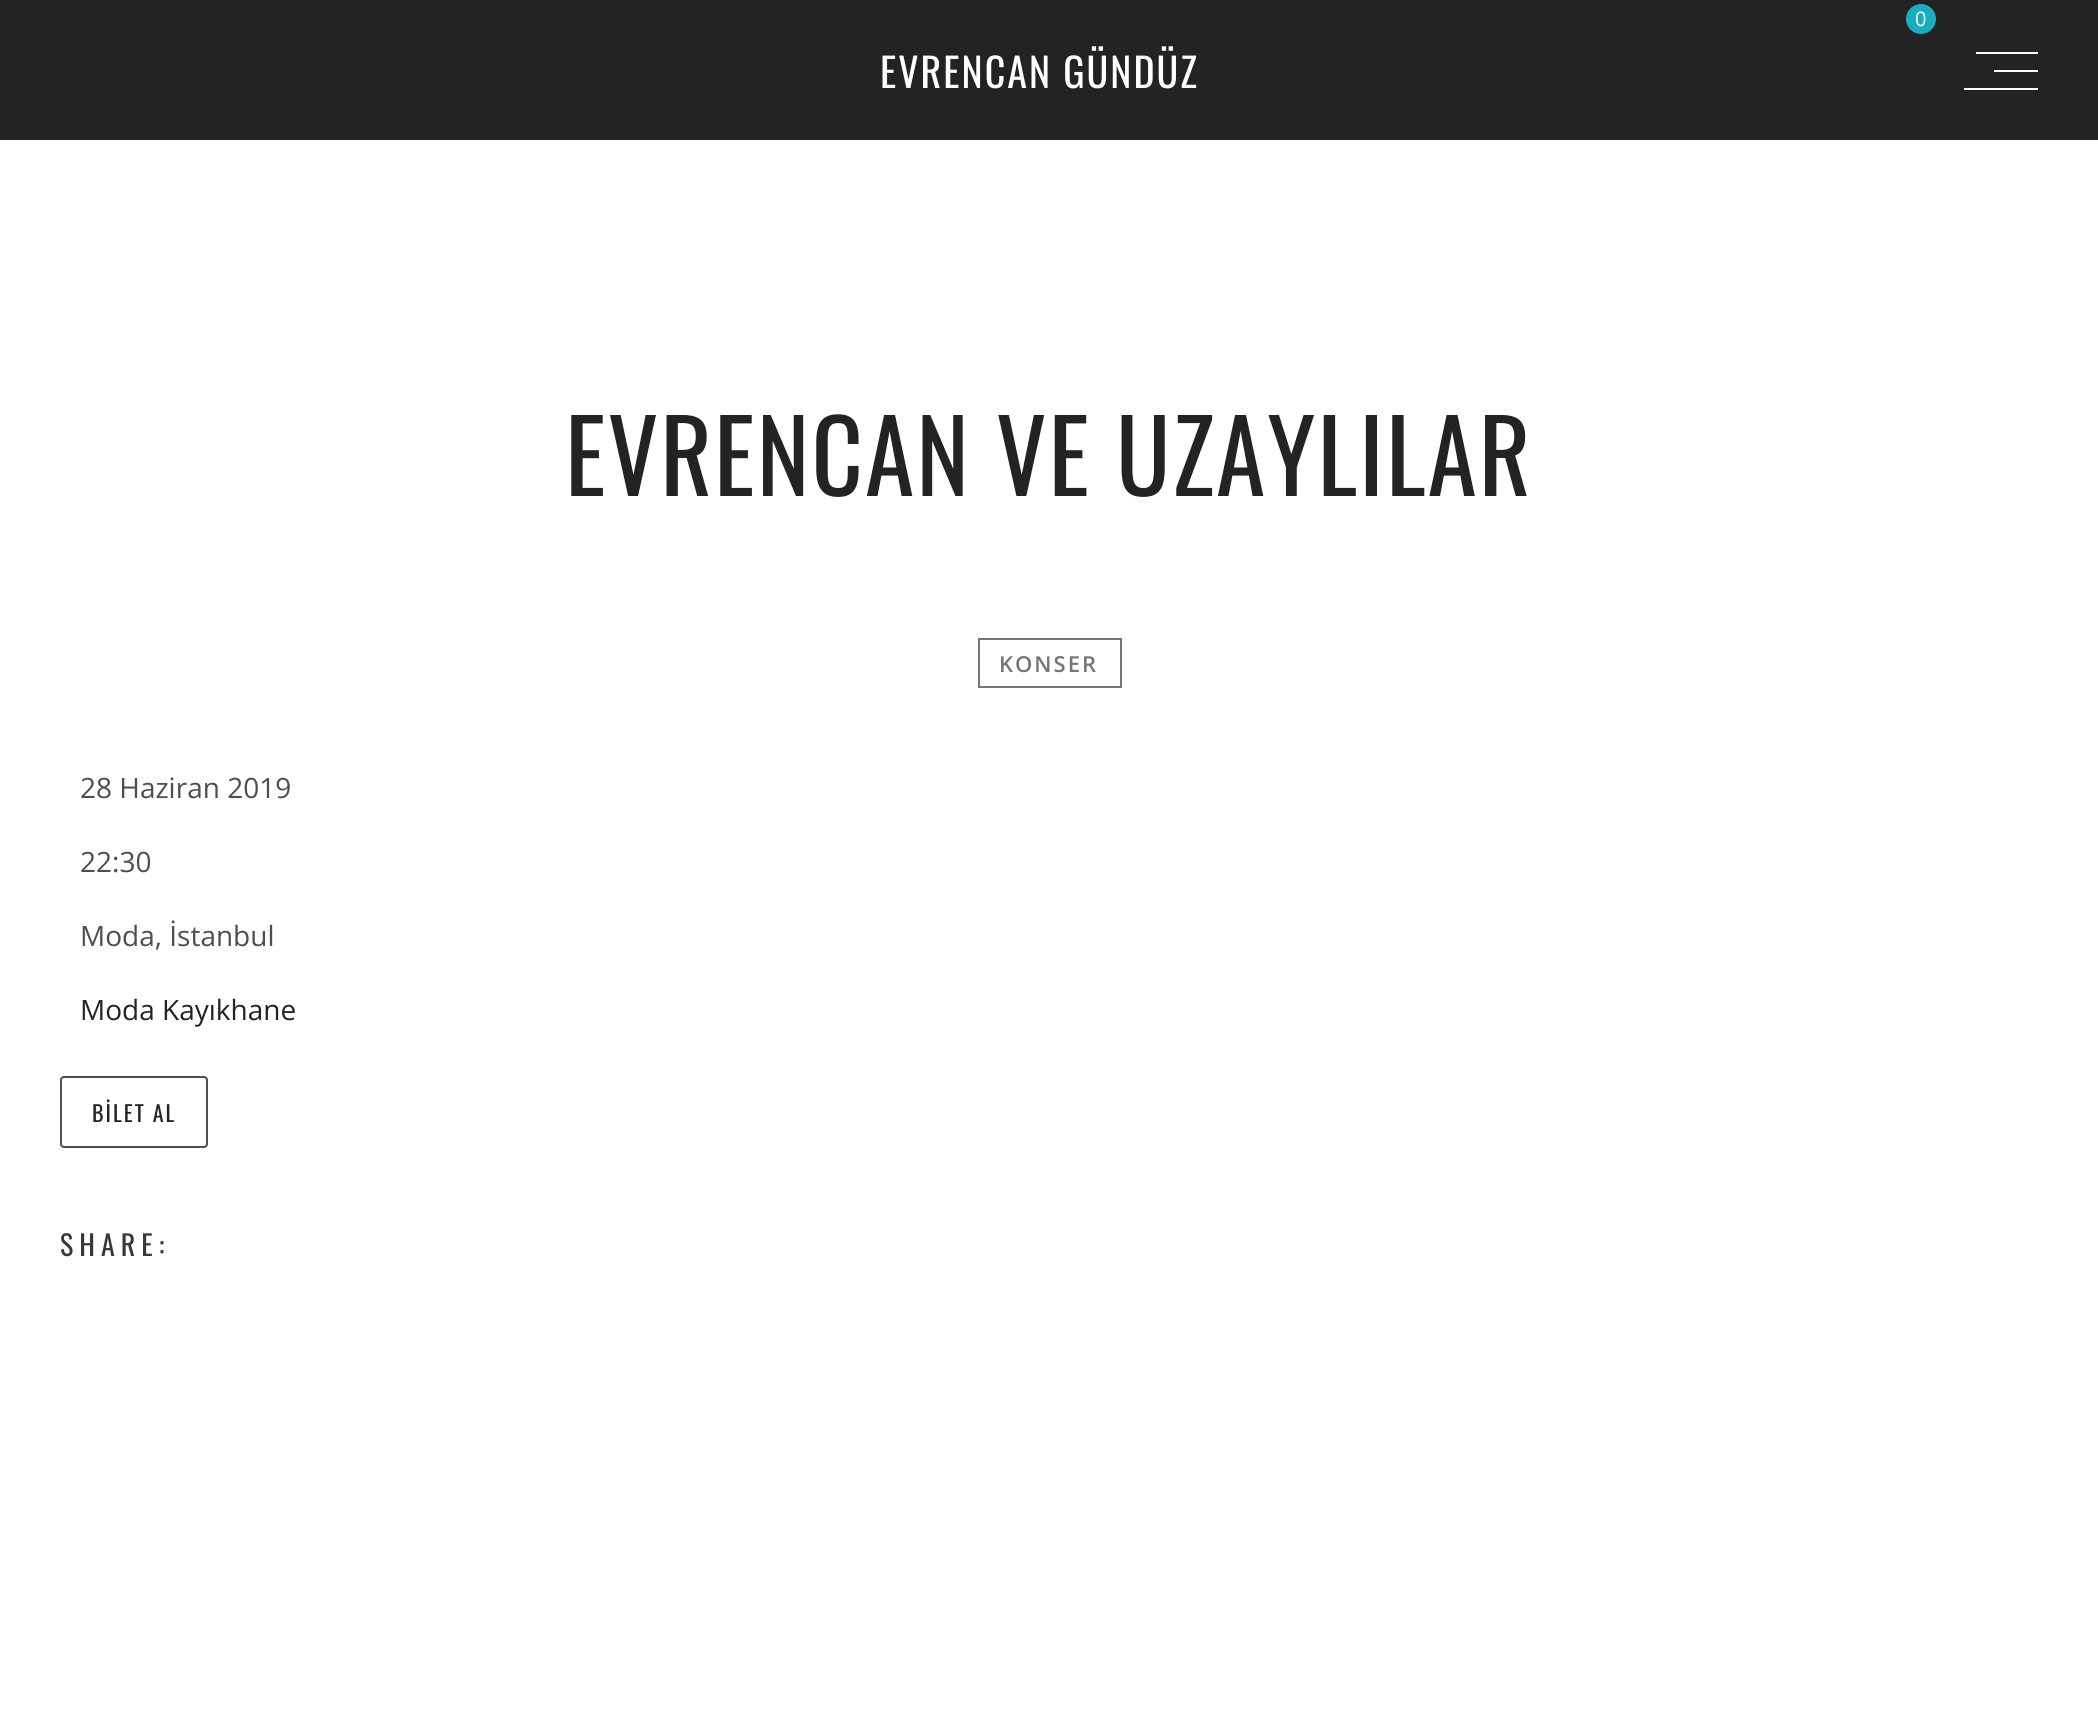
#include <cairo/cairo.h>
#include <math.h>
#include <stddef.h>

typedef struct { double x, y; const char *s; } line_t;
typedef struct { double x, y, w, h; unsigned color; } box_t;
static cairo_t *cr;

static void rgb(unsigned color)
{
	cairo_set_source_rgb(cr, (color >> 16) / 255.0, (color >> 8 & 255) / 255.0, (color & 255) / 255.0);
}

static void tracked(double x, double y, const char *s, double letter, double word)
{
	cairo_move_to(cr, x, y);
	while (*s) {
		char ch[5] = {0};
		int n = 0;
		do ch[n++] = *s++; while ((*s & 0xC0) == 0x80);
		cairo_show_text(cr, ch);
		cairo_rel_move_to(cr, letter + word * (*ch == ' '), 0);
	}
}

static void rrect(double x, double y, double w, double h, double r)
{
	cairo_new_sub_path(cr);
	cairo_arc(cr, x + w - r, y + h - r, r, 0, M_PI / 2);
	cairo_arc(cr, x + r, y + h - r, r, M_PI / 2, M_PI);
	cairo_arc(cr, x + r, y + r, r, M_PI, 1.5 * M_PI);
	cairo_arc(cr, x + w - r, y + r, r, 1.5 * M_PI, 2 * M_PI);
	cairo_close_path(cr);
}

int main(void) {
	cairo_surface_t *surface = cairo_image_surface_create(CAIRO_FORMAT_RGB24, 2098, 1711);
	cr = cairo_create(surface);
	cairo_font_options_t *options = cairo_font_options_create();
	cairo_font_options_set_hint_metrics(options, CAIRO_HINT_METRICS_OFF);
	cairo_font_options_set_hint_style(options, CAIRO_HINT_STYLE_NONE);
	cairo_set_font_options(cr, options);
	cairo_set_miter_limit(cr, 4);
	rgb(0xffffff);
	cairo_paint(cr);
	rgb(0x232323);
	cairo_rectangle(cr, 0, 0, 2098, 140);
	cairo_fill(cr);
	rgb(0x18aebf);
	cairo_arc(cr, 1921, 19, 15, 0, 2 * M_PI);
	cairo_fill(cr);
	{
		static const box_t items[] = {
			{1976, 52, 62, 2, 0xffffff},
			{1994, 70, 44, 2, 0xffffff},
			{1964, 88, 74, 2, 0xffffff},
		};
		for (size_t i = 0; i < sizeof items / sizeof *items; i++) {
			rgb(items[i].color);
			cairo_rectangle(cr, items[i].x, items[i].y, items[i].w, items[i].h);
			cairo_fill(cr);
		}
	}
	cairo_rectangle(cr, 979, 639, 142, 48);
	rgb(0x757575);
	cairo_stroke(cr);
	rrect(61, 1077, 146, 70, 3);
	rgb(0x4e4e4e);
	cairo_stroke(cr);
	cairo_select_font_face(cr, "Open Sans", CAIRO_FONT_SLANT_NORMAL, CAIRO_FONT_WEIGHT_NORMAL);
	cairo_set_font_size(cr, 20);
	rgb(0xffffff);
	cairo_move_to(cr, 1915, 26);
	cairo_show_text(cr, "0");
	cairo_select_font_face(cr, "Oswald", CAIRO_FONT_SLANT_NORMAL, CAIRO_FONT_WEIGHT_NORMAL);
	cairo_set_font_size(cr, 40);
	tracked(880, 88, "EVRENCAN GÜNDÜZ", 2, 0);
	cairo_set_font_size(cr, 100);
	rgb(0x232323);
	tracked(565, 496, "EVRENCAN VE UZAYLILAR", 2, 0);
	cairo_select_font_face(cr, "Open Sans SemiBold", CAIRO_FONT_SLANT_NORMAL, CAIRO_FONT_WEIGHT_NORMAL);
	cairo_set_font_size(cr, 22);
	rgb(0x757575);
	tracked(999, 672, "KONSER", 2, 0);
	cairo_select_font_face(cr, "Open Sans", CAIRO_FONT_SLANT_NORMAL, CAIRO_FONT_WEIGHT_NORMAL);
	cairo_set_font_size(cr, 28);
	rgb(0x4e4e4e);
	{
		static const line_t items[] = {
			{80, 798, "28 Haziran 2019"},
			{80, 872, "22:30"},
			{80, 946, "Moda, İstanbul"},
		};
		for (size_t i = 0; i < sizeof items / sizeof *items; i++) {
			cairo_move_to(cr, items[i].x, items[i].y);
			cairo_show_text(cr, items[i].s);
		}
	}
	rgb(0x232323);
	cairo_move_to(cr, 80, 1020);
	cairo_show_text(cr, "Moda Kayıkhane");
	cairo_select_font_face(cr, "Oswald", CAIRO_FONT_SLANT_NORMAL, CAIRO_FONT_WEIGHT_NORMAL);
	cairo_set_font_size(cr, 22);
	tracked(92, 1122, "BİLET AL", 2, 0);
	cairo_set_font_size(cr, 28);
	rgb(0x383838);
	tracked(60, 1256, "SHARE:", 6, 0);
	cairo_surface_write_to_png(surface, "page.png");
	cairo_font_options_destroy(options);
	cairo_destroy(cr);
	cairo_surface_destroy(surface);
	return 0;
}
